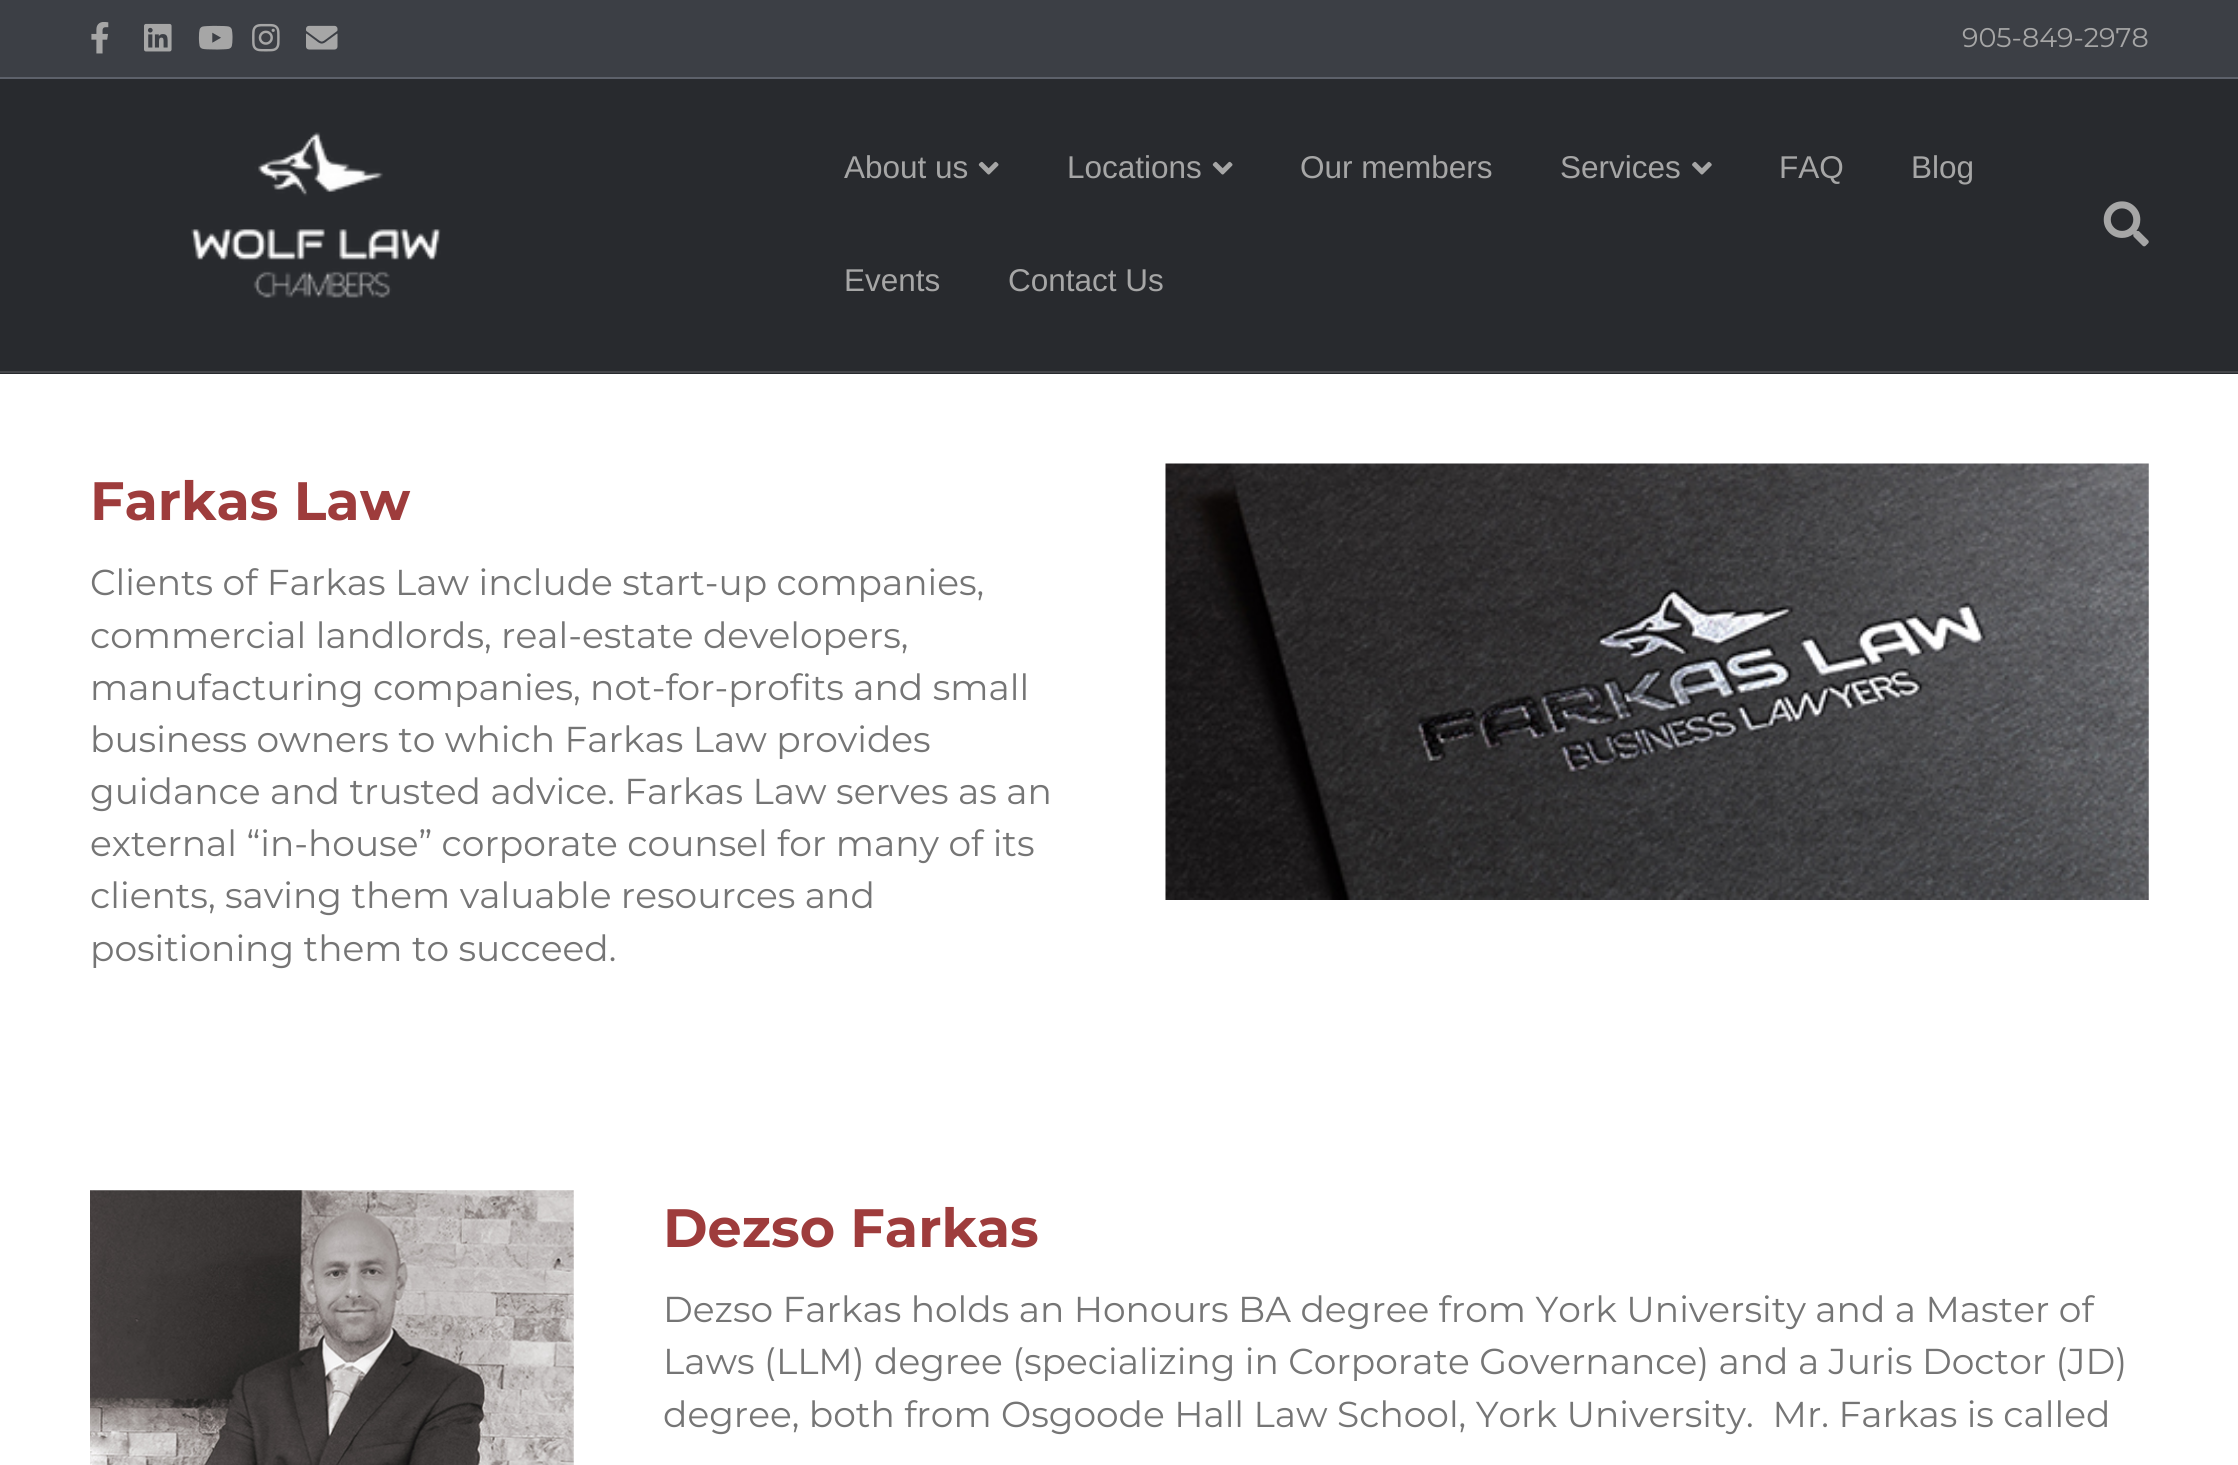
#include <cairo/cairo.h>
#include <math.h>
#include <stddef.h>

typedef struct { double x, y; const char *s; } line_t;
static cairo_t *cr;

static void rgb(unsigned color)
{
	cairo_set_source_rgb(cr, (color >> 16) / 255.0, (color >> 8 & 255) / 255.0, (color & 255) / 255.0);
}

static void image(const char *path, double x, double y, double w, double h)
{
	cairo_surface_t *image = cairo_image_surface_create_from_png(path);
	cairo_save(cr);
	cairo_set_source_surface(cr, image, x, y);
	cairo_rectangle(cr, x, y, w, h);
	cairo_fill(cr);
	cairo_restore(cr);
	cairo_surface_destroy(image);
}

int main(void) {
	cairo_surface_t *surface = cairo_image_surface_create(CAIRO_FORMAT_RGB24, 2238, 1465);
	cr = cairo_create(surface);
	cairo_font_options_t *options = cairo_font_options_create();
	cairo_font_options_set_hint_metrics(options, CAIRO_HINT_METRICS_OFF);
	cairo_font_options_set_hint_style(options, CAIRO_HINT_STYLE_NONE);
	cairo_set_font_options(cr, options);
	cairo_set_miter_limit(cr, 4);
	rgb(0x282a2e);
	cairo_paint(cr);
	rgb(0x3c3f45);
	cairo_rectangle(cr, 0, 0, 2238, 77);
	cairo_fill(cr);
	rgb(0x5d616a);
	cairo_rectangle(cr, 0, 77, 2238, 2);
	cairo_fill(cr);
	image("img/1.png", 91, 22, 18, 32);
	image("img/2.png", 144, 23, 28, 29);
	image("img/3.png", 198, 25, 35, 25);
	image("img/4.png", 252, 23, 28, 29);
	image("img/5.png", 306, 25, 32, 25);
	rgb(0x444549);
	cairo_rectangle(cr, 0, 371, 2238, 2);
	cairo_fill(cr);
	image("img/6.png", 191, 132, 250, 166);
	image("img/7.png", 978, 161, 21, 14);
	image("img/7.png", 1212, 161, 21, 14);
	image("img/8.png", 1692, 161, 20, 14);
	image("img/9.png", 2103, 201, 46, 46);
	rgb(0xffffff);
	cairo_rectangle(cr, 0, 374, 2238, 1091);
	cairo_fill(cr);
	image("img/10.png", 1165, 463, 984, 437);
	image("img/11.png", 90, 1190, 484, 275);
	cairo_select_font_face(cr, "Montserrat", CAIRO_FONT_SLANT_NORMAL, CAIRO_FONT_WEIGHT_NORMAL);
	cairo_set_font_size(cr, 27);
	rgb(0xa6a6a6);
	cairo_move_to(cr, 1962, 47);
	cairo_show_text(cr, "905-849-2978");
	cairo_select_font_face(cr, "Liberation Sans", CAIRO_FONT_SLANT_NORMAL, CAIRO_FONT_WEIGHT_NORMAL);
	cairo_set_font_size(cr, 31.5);
	{
		static const line_t items[] = {
			{844, 178, "About us"},
			{1067, 178, "Locations"},
			{1300, 178, "Our members"},
			{1560, 178, "Services"},
			{1779, 178, "FAQ"},
			{1911, 178, "Blog"},
			{844, 291, "Events"},
			{1008, 291, "Contact Us"},
		};
		for (size_t i = 0; i < sizeof items / sizeof *items; i++) {
			cairo_move_to(cr, items[i].x, items[i].y);
			cairo_show_text(cr, items[i].s);
		}
	}
	cairo_select_font_face(cr, "Montserrat", CAIRO_FONT_SLANT_NORMAL, CAIRO_FONT_WEIGHT_BOLD);
	cairo_set_font_size(cr, 54);
	rgb(0x9e3c3c);
	cairo_move_to(cr, 90, 520);
	cairo_show_text(cr, "Farkas Law");
	cairo_select_font_face(cr, "Montserrat", CAIRO_FONT_SLANT_NORMAL, CAIRO_FONT_WEIGHT_NORMAL);
	cairo_set_font_size(cr, 36);
	rgb(0x757575);
	{
		static const line_t items[] = {
			{90, 595, "Clients of Farkas Law include start-up companies,"},
			{90, 648, "commercial landlords, real-estate developers,"},
			{90, 700, "manufacturing companies, not-for-profits and small"},
			{90, 752, "business owners to which Farkas Law provides"},
			{90, 804, "guidance and trusted advice. Farkas Law serves as an"},
			{90, 856, "external “in-house” corporate counsel for many of its"},
			{90, 908, "clients, saving them valuable resources and"},
			{90, 961, "positioning them to succeed."},
		};
		for (size_t i = 0; i < sizeof items / sizeof *items; i++) {
			cairo_move_to(cr, items[i].x, items[i].y);
			cairo_show_text(cr, items[i].s);
		}
	}
	cairo_select_font_face(cr, "Montserrat", CAIRO_FONT_SLANT_NORMAL, CAIRO_FONT_WEIGHT_BOLD);
	cairo_set_font_size(cr, 54);
	rgb(0x9e3c3c);
	cairo_move_to(cr, 663, 1247);
	cairo_show_text(cr, "Dezso Farkas");
	cairo_select_font_face(cr, "Montserrat", CAIRO_FONT_SLANT_NORMAL, CAIRO_FONT_WEIGHT_NORMAL);
	cairo_set_font_size(cr, 36);
	rgb(0x757575);
	{
		static const line_t items[] = {
			{663, 1322, "Dezso Farkas holds an Honours BA degree from York University and a Master of"},
			{663, 1374, "Laws (LLM) degree (specializing in Corporate Governance) and a Juris Doctor (JD)"},
			{663, 1427, "degree, both from Osgoode Hall Law School, York University.  Mr. Farkas is called"},
		};
		for (size_t i = 0; i < sizeof items / sizeof *items; i++) {
			cairo_move_to(cr, items[i].x, items[i].y);
			cairo_show_text(cr, items[i].s);
		}
	}
	cairo_surface_write_to_png(surface, "page.png");
	cairo_font_options_destroy(options);
	cairo_destroy(cr);
	cairo_surface_destroy(surface);
	return 0;
}
